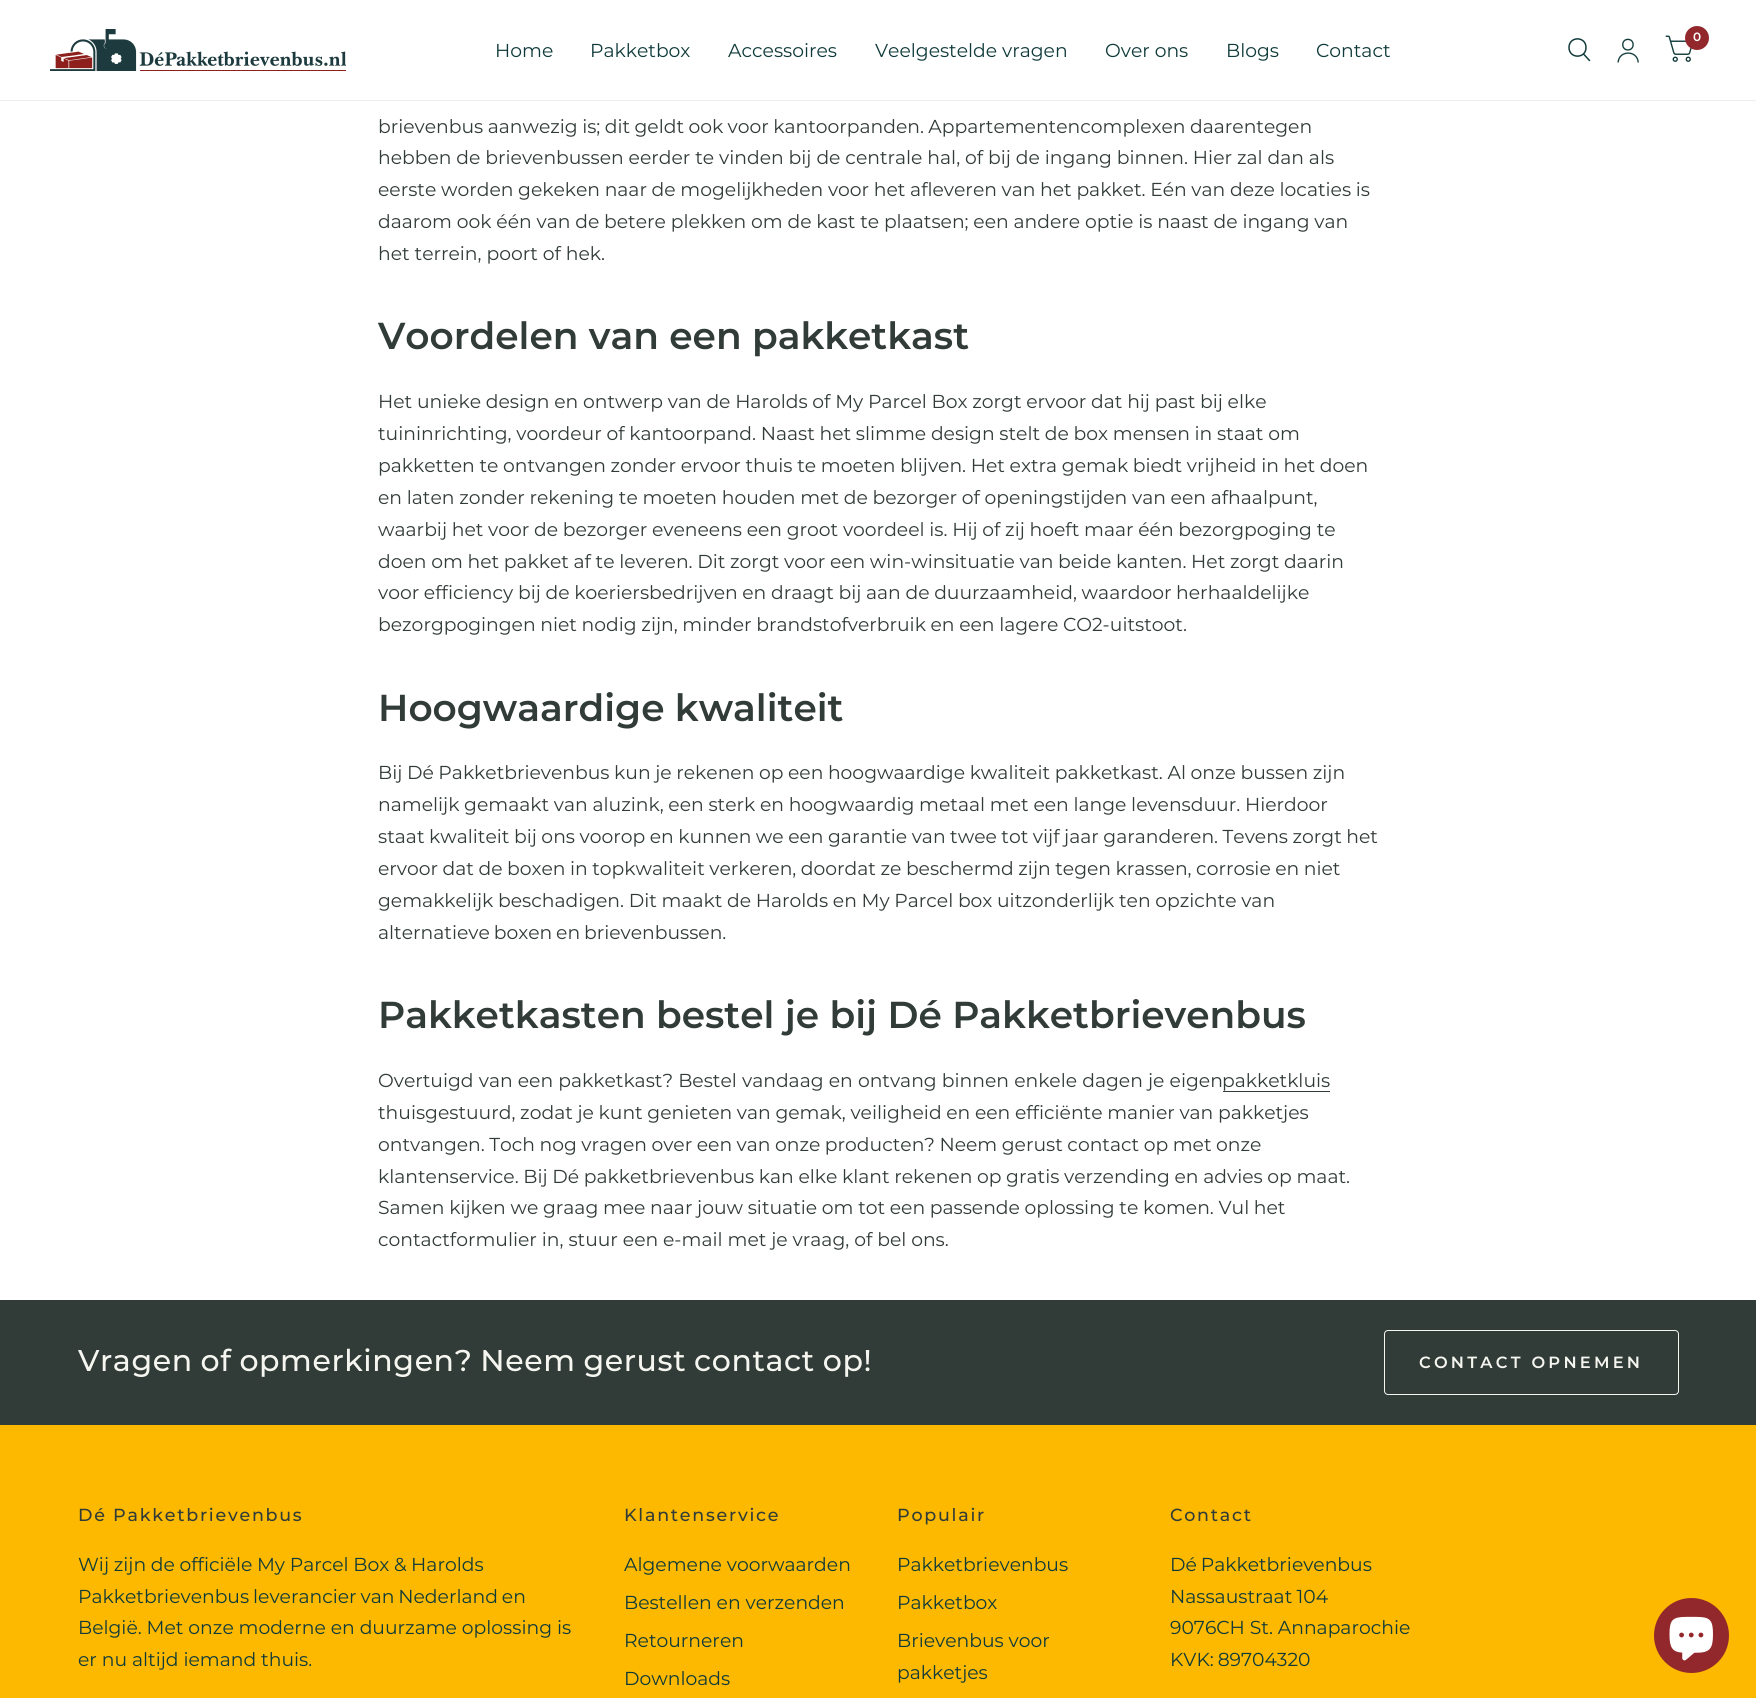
#include <cairo/cairo.h>
#include <math.h>
#include <stddef.h>

typedef struct { double x, y; const char *s; } line_t;
static cairo_t *cr;

static void rgb(unsigned color)
{
	cairo_set_source_rgb(cr, (color >> 16) / 255.0, (color >> 8 & 255) / 255.0, (color & 255) / 255.0);
}

static void tracked(double x, double y, const char *s, double letter, double word)
{
	cairo_move_to(cr, x, y);
	while (*s) {
		char ch[5] = {0};
		int n = 0;
		do ch[n++] = *s++; while ((*s & 0xC0) == 0x80);
		cairo_show_text(cr, ch);
		cairo_rel_move_to(cr, letter + word * (*ch == ' '), 0);
	}
}

static void rrect(double x, double y, double w, double h, double r)
{
	cairo_new_sub_path(cr);
	cairo_arc(cr, x + w - r, y + h - r, r, 0, M_PI / 2);
	cairo_arc(cr, x + r, y + h - r, r, M_PI / 2, M_PI);
	cairo_arc(cr, x + r, y + r, r, M_PI, 1.5 * M_PI);
	cairo_arc(cr, x + w - r, y + r, r, 1.5 * M_PI, 2 * M_PI);
	cairo_close_path(cr);
}

static void image(const char *path, double x, double y, double w, double h)
{
	cairo_surface_t *image = cairo_image_surface_create_from_png(path);
	cairo_save(cr);
	cairo_set_source_surface(cr, image, x, y);
	cairo_rectangle(cr, x, y, w, h);
	cairo_fill(cr);
	cairo_restore(cr);
	cairo_surface_destroy(image);
}

int main(void) {
	cairo_surface_t *surface = cairo_image_surface_create(CAIRO_FORMAT_RGB24, 1756, 1698);
	cr = cairo_create(surface);
	cairo_font_options_t *options = cairo_font_options_create();
	cairo_font_options_set_hint_metrics(options, CAIRO_HINT_METRICS_OFF);
	cairo_font_options_set_hint_style(options, CAIRO_HINT_STYLE_NONE);
	cairo_set_font_options(cr, options);
	cairo_set_miter_limit(cr, 4);
	rgb(0xffffff);
	cairo_paint(cr);
	rgb(0xeeeeee);
	cairo_rectangle(cr, 0, 100, 1756, 1);
	cairo_fill(cr);
	image("img/1.png", 50, 29, 296, 42);
	image("img/2.png", 1665, 35, 27, 27);
	rgb(0x93282c);
	cairo_arc(cr, 1697, 38, 12, 0, 2 * M_PI);
	cairo_fill(cr);
	cairo_new_path(cr);
	cairo_move_to(cr, 1584, 54.5);
	cairo_line_to(cr, 1589.5, 60.5);
	cairo_move_to(cr, 1586, 47.5);
	cairo_curve_to(cr, 1586, 59, 1569, 59, 1569, 47.5);
	cairo_curve_to(cr, 1569, 36, 1586, 36, 1586, 47.5);
	cairo_close_path(cr);
	rgb(0x103a3a);
	cairo_set_line_width(cr, 1.5);
	cairo_set_line_cap(cr, CAIRO_LINE_CAP_ROUND);
	cairo_set_line_join(cr, CAIRO_LINE_JOIN_ROUND);
	cairo_stroke(cr);
	image("img/3.png", 1617, 38, 22, 25);
	rgb(0x313b38);
	cairo_rectangle(cr, 1223, 1091, 107, 1);
	cairo_fill(cr);
	cairo_rectangle(cr, 0, 1300, 1756, 125);
	cairo_fill(cr);
	rrect(1384.5, 1330.5, 294, 64, 3.5);
	rgb(0xf6f6f0);
	cairo_set_line_width(cr, 1);
	cairo_set_line_cap(cr, CAIRO_LINE_CAP_BUTT);
	cairo_set_line_join(cr, CAIRO_LINE_JOIN_MITER);
	cairo_stroke(cr);
	rgb(0xfcb900);
	cairo_rectangle(cr, 0, 1425, 1756, 273);
	cairo_fill(cr);
	rgb(0x93282c);
	cairo_arc(cr, 1691.5, 1635.5, 37.5, 0, 2 * M_PI);
	cairo_fill(cr);
	image("img/4.png", 1669, 1616, 44, 45);
	cairo_select_font_face(cr, "Montserrat SemiBold", CAIRO_FONT_SLANT_NORMAL, CAIRO_FONT_WEIGHT_NORMAL);
	cairo_set_font_size(cr, 12);
	rgb(0xffffff);
	cairo_move_to(cr, 1693, 41);
	cairo_show_text(cr, "0");
	cairo_select_font_face(cr, "Montserrat", CAIRO_FONT_SLANT_NORMAL, CAIRO_FONT_WEIGHT_NORMAL);
	cairo_set_font_size(cr, 18.75);
	rgb(0x103a3a);
	{
		static const line_t items[] = {
			{495, 57, "Home"},
			{590, 57, "Pakketbox"},
			{728, 57, "Accessoires"},
			{875, 57, "Veelgestelde vragen"},
			{1105, 57, "Over ons"},
			{1226, 57, "Blogs"},
			{1316, 57, "Contact"},
		};
		for (size_t i = 0; i < sizeof items / sizeof *items; i++) {
			cairo_move_to(cr, items[i].x, items[i].y);
			cairo_show_text(cr, items[i].s);
		}
	}
	rgb(0x313b38);
	tracked(378, 133, "brievenbus aanwezig is; dit geldt ook voor kantoorpanden. Appartementencomplexen daarentegen", 0, -0.5);
	cairo_move_to(cr, 378, 164);
	cairo_show_text(cr, "hebben de brievenbussen eerder te vinden bij de centrale hal, of bij de ingang binnen. Hier zal dan als");
	tracked(378, 196, "eerste worden gekeken naar de mogelijkheden voor het afleveren van het pakket. Eén van deze locaties is", 0, -0.25);
	tracked(378, 228, "daarom ook één van de betere plekken om de kast te plaatsen; een andere optie is naast de ingang van", 0, -0.1);
	cairo_move_to(cr, 378, 260);
	cairo_show_text(cr, "het terrein, poort of hek.");
	cairo_select_font_face(cr, "Montserrat SemiBold", CAIRO_FONT_SLANT_NORMAL, CAIRO_FONT_WEIGHT_NORMAL);
	cairo_set_font_size(cr, 37.5);
	cairo_move_to(cr, 378, 349);
	cairo_show_text(cr, "Voordelen van een pakketkast");
	cairo_select_font_face(cr, "Montserrat", CAIRO_FONT_SLANT_NORMAL, CAIRO_FONT_WEIGHT_NORMAL);
	cairo_set_font_size(cr, 18.75);
	tracked(378, 408, "Het unieke design en ontwerp van de Harolds of My Parcel Box zorgt ervoor dat hij past bij elke", 0, -0.2);
	tracked(378, 440, "tuininrichting, voordeur of kantoorpand. Naast het slimme design stelt de box mensen in staat om", 0, -0.2);
	tracked(378, 472, "pakketten te ontvangen zonder ervoor thuis te moeten blijven. Het extra gemak biedt vrijheid in het doen", 0, -0.25);
	tracked(378, 504, "en laten zonder rekening te moeten houden met de bezorger of openingstijden van een afhaalpunt,", 0, -0.2);
	tracked(378, 536, "waarbij het voor de bezorger eveneens een groot voordeel is. Hij of zij hoeft maar één bezorgpoging te", 0, -0.2);
	{
		static const line_t items[] = {
			{378, 568, "doen om het pakket af te leveren. Dit zorgt voor een win-winsituatie van beide kanten. Het zorgt daarin"},
			{378, 599, "voor efficiency bij de koeriersbedrijven en draagt bij aan de duurzaamheid, waardoor herhaaldelijke"},
			{378, 631, "bezorgpogingen niet nodig zijn, minder brandstofverbruik en een lagere CO2-uitstoot."},
		};
		for (size_t i = 0; i < sizeof items / sizeof *items; i++) {
			tracked(items[i].x, items[i].y, items[i].s, 0, -0.25);
		}
	}
	cairo_select_font_face(cr, "Montserrat SemiBold", CAIRO_FONT_SLANT_NORMAL, CAIRO_FONT_WEIGHT_NORMAL);
	cairo_set_font_size(cr, 37.5);
	cairo_move_to(cr, 378, 721);
	cairo_show_text(cr, "Hoogwaardige kwaliteit");
	cairo_select_font_face(cr, "Montserrat", CAIRO_FONT_SLANT_NORMAL, CAIRO_FONT_WEIGHT_NORMAL);
	cairo_set_font_size(cr, 18.75);
	tracked(378, 779, "Bij Dé Pakketbrievenbus kun je rekenen op een hoogwaardige kwaliteit pakketkast. Al onze bussen zijn", 0, -0.3);
	tracked(378, 811, "namelijk gemaakt van aluzink, een sterk en hoogwaardig metaal met een lange levensduur. Hierdoor", 0, -0.2);
	tracked(378, 843, "staat kwaliteit bij ons voorop en kunnen we een garantie van twee tot vijf jaar garanderen. Tevens zorgt het", 0, -0.4);
	tracked(378, 875, "ervoor dat de boxen in topkwaliteit verkeren, doordat ze beschermd zijn tegen krassen, corrosie en niet", 0, -0.4);
	tracked(378, 907, "gemakkelijk beschadigen. Dit maakt de Harolds en My Parcel box uitzonderlijk ten opzichte van", 0, -0.25);
	tracked(378, 939, "alternatieve boxen en brievenbussen.", 0, -1);
	cairo_select_font_face(cr, "Montserrat SemiBold", CAIRO_FONT_SLANT_NORMAL, CAIRO_FONT_WEIGHT_NORMAL);
	cairo_set_font_size(cr, 37.5);
	cairo_move_to(cr, 378, 1028);
	cairo_show_text(cr, "Pakketkasten bestel je bij Dé Pakketbrievenbus");
	cairo_select_font_face(cr, "Montserrat", CAIRO_FONT_SLANT_NORMAL, CAIRO_FONT_WEIGHT_NORMAL);
	cairo_set_font_size(cr, 18.75);
	tracked(378, 1087, "Overtuigd van een pakketkast? Bestel vandaag en ontvang binnen enkele dagen je eigen", 0, 0.25);
	cairo_move_to(cr, 1222, 1087);
	cairo_show_text(cr, "pakketkluis");
	tracked(378, 1119, "thuisgestuurd, zodat je kunt genieten van gemak, veiligheid en een efficiënte manier van pakketjes", 0, -0.25);
	tracked(378, 1151, "ontvangen. Toch nog vragen over een van onze producten? Neem gerust contact op met onze", 0, -0.4);
	tracked(378, 1183, "klantenservice. Bij Dé pakketbrievenbus kan elke klant rekenen op gratis verzending en advies op maat.", 0, -0.25);
	tracked(378, 1214, "Samen kijken we graag mee naar jouw situatie om tot een passende oplossing te komen. Vul het", 0, -0.25);
	cairo_move_to(cr, 378, 1246);
	cairo_show_text(cr, "contactformulier in, stuur een e-mail met je vraag, of bel ons.");
	cairo_select_font_face(cr, "Montserrat Medium", CAIRO_FONT_SLANT_NORMAL, CAIRO_FONT_WEIGHT_NORMAL);
	cairo_set_font_size(cr, 30);
	rgb(0xf6f6f0);
	tracked(78, 1371, "Vragen of opmerkingen? Neem gerust contact op!", 0.6, -0.75);
	cairo_select_font_face(cr, "Montserrat SemiBold", CAIRO_FONT_SLANT_NORMAL, CAIRO_FONT_WEIGHT_NORMAL);
	cairo_set_font_size(cr, 16.25);
	tracked(1419, 1368, "CONTACT OPNEMEN", 3.25, 0);
	cairo_select_font_face(cr, "Montserrat Medium", CAIRO_FONT_SLANT_NORMAL, CAIRO_FONT_WEIGHT_NORMAL);
	cairo_set_font_size(cr, 17.5);
	rgb(0x313b38);
	tracked(78, 1521, "Dé Pakketbrievenbus", 1.75, 0);
	cairo_select_font_face(cr, "Montserrat", CAIRO_FONT_SLANT_NORMAL, CAIRO_FONT_WEIGHT_NORMAL);
	cairo_set_font_size(cr, 18.75);
	rgb(0x103a3a);
	tracked(78, 1571, "Wij zijn de officiële My Parcel Box & Harolds", 0, -0.25);
	tracked(78, 1603, "Pakketbrievenbus leverancier van Nederland en", 0, -1);
	cairo_move_to(cr, 78, 1634);
	cairo_show_text(cr, "België. Met onze moderne en duurzame oplossing is");
	cairo_move_to(cr, 78, 1666);
	cairo_show_text(cr, "er nu altijd iemand thuis.");
	cairo_select_font_face(cr, "Montserrat Medium", CAIRO_FONT_SLANT_NORMAL, CAIRO_FONT_WEIGHT_NORMAL);
	cairo_set_font_size(cr, 17.5);
	rgb(0x313b38);
	tracked(624, 1521, "Klantenservice", 1.75, 0);
	cairo_select_font_face(cr, "Montserrat", CAIRO_FONT_SLANT_NORMAL, CAIRO_FONT_WEIGHT_NORMAL);
	cairo_set_font_size(cr, 18.75);
	rgb(0x103a3a);
	{
		static const line_t items[] = {
			{624, 1571, "Algemene voorwaarden"},
			{624, 1609, "Bestellen en verzenden"},
			{624, 1647, "Retourneren"},
			{624, 1685, "Downloads"},
		};
		for (size_t i = 0; i < sizeof items / sizeof *items; i++) {
			cairo_move_to(cr, items[i].x, items[i].y);
			cairo_show_text(cr, items[i].s);
		}
	}
	cairo_select_font_face(cr, "Montserrat Medium", CAIRO_FONT_SLANT_NORMAL, CAIRO_FONT_WEIGHT_NORMAL);
	cairo_set_font_size(cr, 17.5);
	rgb(0x313b38);
	tracked(897, 1521, "Populair", 1.75, 0);
	cairo_select_font_face(cr, "Montserrat", CAIRO_FONT_SLANT_NORMAL, CAIRO_FONT_WEIGHT_NORMAL);
	cairo_set_font_size(cr, 18.75);
	rgb(0x103a3a);
	{
		static const line_t items[] = {
			{897, 1571, "Pakketbrievenbus"},
			{897, 1609, "Pakketbox"},
			{897, 1647, "Brievenbus voor"},
			{897, 1679, "pakketjes"},
		};
		for (size_t i = 0; i < sizeof items / sizeof *items; i++) {
			cairo_move_to(cr, items[i].x, items[i].y);
			cairo_show_text(cr, items[i].s);
		}
	}
	cairo_select_font_face(cr, "Montserrat Medium", CAIRO_FONT_SLANT_NORMAL, CAIRO_FONT_WEIGHT_NORMAL);
	cairo_set_font_size(cr, 17.5);
	rgb(0x313b38);
	tracked(1170, 1521, "Contact", 1.75, 0);
	cairo_select_font_face(cr, "Montserrat", CAIRO_FONT_SLANT_NORMAL, CAIRO_FONT_WEIGHT_NORMAL);
	cairo_set_font_size(cr, 18.75);
	rgb(0x103a3a);
	tracked(1170, 1571, "Dé Pakketbrievenbus", 0, -1);
	tracked(1170, 1603, "Nassaustraat 104", 0, -0.75);
	cairo_move_to(cr, 1170, 1634);
	cairo_show_text(cr, "9076CH St. Annaparochie");
	tracked(1170, 1666, "KVK: 89704320", 0, -1);
	cairo_surface_write_to_png(surface, "page.png");
	cairo_font_options_destroy(options);
	cairo_destroy(cr);
	cairo_surface_destroy(surface);
	return 0;
}
